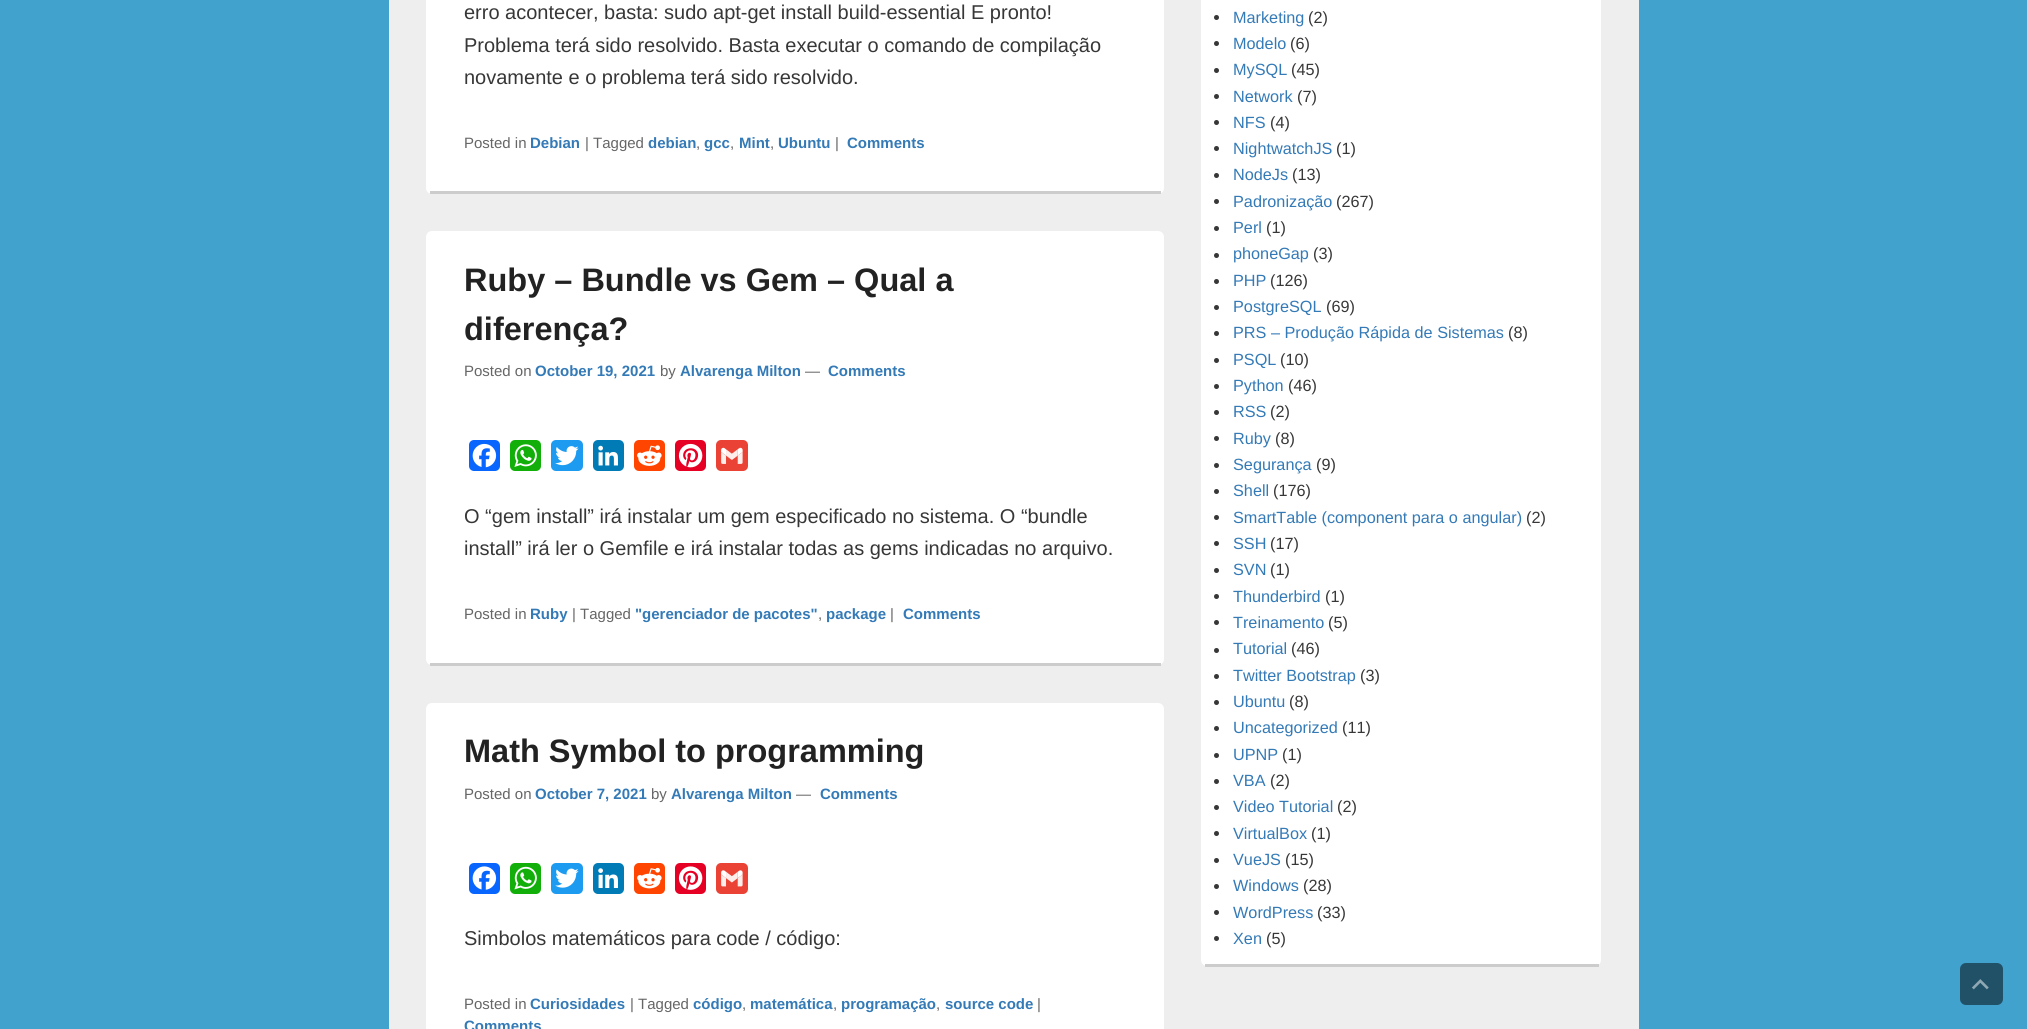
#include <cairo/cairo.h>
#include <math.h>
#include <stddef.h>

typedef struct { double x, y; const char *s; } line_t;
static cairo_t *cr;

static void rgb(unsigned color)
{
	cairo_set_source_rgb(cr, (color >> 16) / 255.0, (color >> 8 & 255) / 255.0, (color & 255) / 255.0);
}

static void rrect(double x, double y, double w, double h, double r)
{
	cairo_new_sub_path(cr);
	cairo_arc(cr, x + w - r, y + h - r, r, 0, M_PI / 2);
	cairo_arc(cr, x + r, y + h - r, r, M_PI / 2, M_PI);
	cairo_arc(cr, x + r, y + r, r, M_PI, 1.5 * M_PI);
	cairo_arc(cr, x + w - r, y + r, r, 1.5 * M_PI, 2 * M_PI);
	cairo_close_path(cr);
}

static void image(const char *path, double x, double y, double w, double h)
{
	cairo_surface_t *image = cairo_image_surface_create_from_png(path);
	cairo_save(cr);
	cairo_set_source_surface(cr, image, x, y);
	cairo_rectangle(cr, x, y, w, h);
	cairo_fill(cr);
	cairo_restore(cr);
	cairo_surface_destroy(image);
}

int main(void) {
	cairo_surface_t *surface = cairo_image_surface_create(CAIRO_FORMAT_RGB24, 2027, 1029);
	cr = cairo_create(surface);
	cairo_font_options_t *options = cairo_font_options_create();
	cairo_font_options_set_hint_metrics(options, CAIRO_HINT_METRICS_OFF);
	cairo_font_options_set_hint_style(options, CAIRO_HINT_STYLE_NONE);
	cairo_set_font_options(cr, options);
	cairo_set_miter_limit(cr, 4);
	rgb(0x42a2ce);
	cairo_paint(cr);
	rgb(0xeeeeee);
	cairo_rectangle(cr, 389, 0, 1250, 1029);
	cairo_fill(cr);
	rgb(0xffffff);
	rrect(426, -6, 738, 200, 6);
	cairo_fill(cr);
	rgb(0xcccccc);
	cairo_rectangle(cr, 430, 191, 731, 3);
	cairo_fill(cr);
	rgb(0xffffff);
	rrect(426, 231, 738, 434, 6);
	cairo_fill(cr);
	rgb(0xcccccc);
	cairo_rectangle(cr, 430, 663, 731, 3);
	cairo_fill(cr);
	rgb(0x0866ff);
	rrect(469, 440, 31, 31, 5);
	cairo_fill(cr);
	image("img/1.png", 472, 443, 25, 25);
	rgb(0x12af0a);
	rrect(510, 440, 31, 31, 5);
	cairo_fill(cr);
	image("img/2.png", 514, 444, 23, 23);
	rgb(0x1d9bf0);
	rrect(551, 440, 32, 31, 5);
	cairo_fill(cr);
	image("img/3.png", 555, 446, 24, 20);
	rgb(0x007bb5);
	rrect(593, 440, 31, 31, 5);
	cairo_fill(cr);
	image("img/4.png", 598, 445, 20, 21);
	rgb(0xff4500);
	rrect(634, 440, 31, 31, 5);
	cairo_fill(cr);
	image("img/5.png", 637, 445, 25, 21);
	rgb(0xe60023);
	rrect(675, 440, 31, 31, 5);
	cairo_fill(cr);
	image("img/6.png", 678, 443, 25, 25);
	rgb(0xea4335);
	rrect(716, 440, 32, 31, 5);
	cairo_fill(cr);
	image("img/7.png", 721, 447, 22, 17);
	rgb(0xffffff);
	rrect(426, 703, 738, 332, 6);
	cairo_fill(cr);
	rgb(0x0866ff);
	rrect(469, 863, 31, 31, 5);
	cairo_fill(cr);
	image("img/8.png", 472, 866, 25, 24);
	rgb(0x12af0a);
	rrect(510, 863, 31, 31, 5);
	cairo_fill(cr);
	image("img/9.png", 514, 866, 23, 24);
	rgb(0x1d9bf0);
	rrect(551, 863, 32, 31, 5);
	cairo_fill(cr);
	image("img/10.png", 555, 868, 24, 20);
	rgb(0x007bb5);
	rrect(593, 863, 31, 31, 5);
	cairo_fill(cr);
	image("img/11.png", 598, 868, 20, 20);
	rgb(0xff4500);
	rrect(634, 863, 31, 31, 5);
	cairo_fill(cr);
	image("img/12.png", 637, 867, 25, 22);
	rgb(0xe60023);
	rrect(675, 863, 31, 31, 5);
	cairo_fill(cr);
	image("img/13.png", 678, 866, 25, 24);
	rgb(0xea4335);
	rrect(716, 863, 32, 31, 5);
	cairo_fill(cr);
	image("img/14.png", 721, 870, 22, 17);
	rgb(0xffffff);
	rrect(1201, -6, 400, 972, 6);
	cairo_fill(cr);
	rgb(0xcccccc);
	cairo_rectangle(cr, 1205, 964, 394, 3);
	cairo_fill(cr);
	rgb(0x373737);
	cairo_arc(cr, 1216.5, 17.5, 2.5, 0, 2 * M_PI);
	cairo_fill(cr);
	cairo_arc(cr, 1216.5, 43.5, 2.5, 0, 2 * M_PI);
	cairo_fill(cr);
	cairo_arc(cr, 1216.5, 70.5, 2.5, 0, 2 * M_PI);
	cairo_fill(cr);
	cairo_arc(cr, 1216.5, 96.5, 2.5, 0, 2 * M_PI);
	cairo_fill(cr);
	cairo_arc(cr, 1216.5, 122.5, 2.5, 0, 2 * M_PI);
	cairo_fill(cr);
	cairo_arc(cr, 1216.5, 148.5, 2.5, 0, 2 * M_PI);
	cairo_fill(cr);
	cairo_arc(cr, 1216.5, 175.5, 2.5, 0, 2 * M_PI);
	cairo_fill(cr);
	cairo_arc(cr, 1216.5, 201.5, 2.5, 0, 2 * M_PI);
	cairo_fill(cr);
	cairo_arc(cr, 1216.5, 228.5, 2.5, 0, 2 * M_PI);
	cairo_fill(cr);
	cairo_arc(cr, 1216.5, 255.5, 2.5, 0, 2 * M_PI);
	cairo_fill(cr);
	cairo_arc(cr, 1216.5, 281.5, 2.5, 0, 2 * M_PI);
	cairo_fill(cr);
	cairo_arc(cr, 1216.5, 307.5, 2.5, 0, 2 * M_PI);
	cairo_fill(cr);
	cairo_arc(cr, 1216.5, 333.5, 2.5, 0, 2 * M_PI);
	cairo_fill(cr);
	cairo_arc(cr, 1216.5, 360.5, 2.5, 0, 2 * M_PI);
	cairo_fill(cr);
	cairo_arc(cr, 1216.5, 386.5, 2.5, 0, 2 * M_PI);
	cairo_fill(cr);
	cairo_arc(cr, 1216.5, 412.5, 2.5, 0, 2 * M_PI);
	cairo_fill(cr);
	cairo_arc(cr, 1216.5, 438.5, 2.5, 0, 2 * M_PI);
	cairo_fill(cr);
	cairo_arc(cr, 1216.5, 465.5, 2.5, 0, 2 * M_PI);
	cairo_fill(cr);
	cairo_arc(cr, 1216.5, 491.5, 2.5, 0, 2 * M_PI);
	cairo_fill(cr);
	cairo_arc(cr, 1216.5, 517.5, 2.5, 0, 2 * M_PI);
	cairo_fill(cr);
	cairo_arc(cr, 1216.5, 543.5, 2.5, 0, 2 * M_PI);
	cairo_fill(cr);
	cairo_arc(cr, 1216.5, 570.5, 2.5, 0, 2 * M_PI);
	cairo_fill(cr);
	cairo_arc(cr, 1216.5, 596.5, 2.5, 0, 2 * M_PI);
	cairo_fill(cr);
	cairo_arc(cr, 1216.5, 622.5, 2.5, 0, 2 * M_PI);
	cairo_fill(cr);
	cairo_arc(cr, 1216.5, 650.5, 2.5, 0, 2 * M_PI);
	cairo_fill(cr);
	cairo_arc(cr, 1216.5, 676.5, 2.5, 0, 2 * M_PI);
	cairo_fill(cr);
	cairo_arc(cr, 1216.5, 702.5, 2.5, 0, 2 * M_PI);
	cairo_fill(cr);
	cairo_arc(cr, 1216.5, 728.5, 2.5, 0, 2 * M_PI);
	cairo_fill(cr);
	cairo_arc(cr, 1216.5, 755.5, 2.5, 0, 2 * M_PI);
	cairo_fill(cr);
	cairo_arc(cr, 1216.5, 781.5, 2.5, 0, 2 * M_PI);
	cairo_fill(cr);
	cairo_arc(cr, 1216.5, 807.5, 2.5, 0, 2 * M_PI);
	cairo_fill(cr);
	cairo_arc(cr, 1216.5, 833.5, 2.5, 0, 2 * M_PI);
	cairo_fill(cr);
	cairo_arc(cr, 1216.5, 860.5, 2.5, 0, 2 * M_PI);
	cairo_fill(cr);
	cairo_arc(cr, 1216.5, 886.5, 2.5, 0, 2 * M_PI);
	cairo_fill(cr);
	cairo_arc(cr, 1216.5, 912.5, 2.5, 0, 2 * M_PI);
	cairo_fill(cr);
	cairo_arc(cr, 1216.5, 938.5, 2.5, 0, 2 * M_PI);
	cairo_fill(cr);
	rgb(0x215167);
	rrect(1960, 963, 43, 42, 6);
	cairo_fill(cr);
	image("img/15.png", 1972, 979, 17, 11);
	cairo_select_font_face(cr, "Liberation Sans", CAIRO_FONT_SLANT_NORMAL, CAIRO_FONT_WEIGHT_NORMAL);
	cairo_set_font_size(cr, 20);
	rgb(0x373737);
	{
		static const line_t items[] = {
			{464, 19, "erro acontecer, basta: sudo apt-get install build-essential E pronto!"},
			{464, 52, "Problema terá sido resolvido. Basta executar o comando de compilação"},
			{464, 84, "novamente e o problema terá sido resolvido."},
		};
		for (size_t i = 0; i < sizeof items / sizeof *items; i++) {
			cairo_move_to(cr, items[i].x, items[i].y);
			cairo_show_text(cr, items[i].s);
		}
	}
	cairo_set_font_size(cr, 15);
	rgb(0x666666);
	cairo_move_to(cr, 464, 148);
	cairo_show_text(cr, "Posted in");
	cairo_select_font_face(cr, "Liberation Sans", CAIRO_FONT_SLANT_NORMAL, CAIRO_FONT_WEIGHT_BOLD);
	rgb(0x337ab7);
	cairo_move_to(cr, 530, 148);
	cairo_show_text(cr, "Debian");
	cairo_select_font_face(cr, "Liberation Sans", CAIRO_FONT_SLANT_NORMAL, CAIRO_FONT_WEIGHT_NORMAL);
	rgb(0x666666);
	cairo_move_to(cr, 585, 148);
	cairo_show_text(cr, "| Tagged");
	cairo_select_font_face(cr, "Liberation Sans", CAIRO_FONT_SLANT_NORMAL, CAIRO_FONT_WEIGHT_BOLD);
	rgb(0x337ab7);
	cairo_move_to(cr, 648, 148);
	cairo_show_text(cr, "debian");
	cairo_select_font_face(cr, "Liberation Sans", CAIRO_FONT_SLANT_NORMAL, CAIRO_FONT_WEIGHT_NORMAL);
	rgb(0x666666);
	cairo_move_to(cr, 696, 148);
	cairo_show_text(cr, ",");
	cairo_select_font_face(cr, "Liberation Sans", CAIRO_FONT_SLANT_NORMAL, CAIRO_FONT_WEIGHT_BOLD);
	rgb(0x337ab7);
	cairo_move_to(cr, 704, 148);
	cairo_show_text(cr, "gcc");
	cairo_select_font_face(cr, "Liberation Sans", CAIRO_FONT_SLANT_NORMAL, CAIRO_FONT_WEIGHT_NORMAL);
	rgb(0x666666);
	cairo_move_to(cr, 730, 148);
	cairo_show_text(cr, ",");
	cairo_select_font_face(cr, "Liberation Sans", CAIRO_FONT_SLANT_NORMAL, CAIRO_FONT_WEIGHT_BOLD);
	rgb(0x337ab7);
	cairo_move_to(cr, 739, 148);
	cairo_show_text(cr, "Mint");
	cairo_select_font_face(cr, "Liberation Sans", CAIRO_FONT_SLANT_NORMAL, CAIRO_FONT_WEIGHT_NORMAL);
	rgb(0x666666);
	cairo_move_to(cr, 770, 148);
	cairo_show_text(cr, ",");
	cairo_select_font_face(cr, "Liberation Sans", CAIRO_FONT_SLANT_NORMAL, CAIRO_FONT_WEIGHT_BOLD);
	rgb(0x337ab7);
	cairo_move_to(cr, 778, 148);
	cairo_show_text(cr, "Ubuntu");
	cairo_select_font_face(cr, "Liberation Sans", CAIRO_FONT_SLANT_NORMAL, CAIRO_FONT_WEIGHT_NORMAL);
	rgb(0x666666);
	cairo_move_to(cr, 835, 148);
	cairo_show_text(cr, "|");
	cairo_select_font_face(cr, "Liberation Sans", CAIRO_FONT_SLANT_NORMAL, CAIRO_FONT_WEIGHT_BOLD);
	rgb(0x337ab7);
	cairo_move_to(cr, 847, 148);
	cairo_show_text(cr, "Comments");
	cairo_set_font_size(cr, 32.5);
	rgb(0x222222);
	cairo_move_to(cr, 464, 291);
	cairo_show_text(cr, "Ruby – Bundle vs Gem – Qual a");
	cairo_move_to(cr, 464, 340);
	cairo_show_text(cr, "diferença?");
	cairo_select_font_face(cr, "Liberation Sans", CAIRO_FONT_SLANT_NORMAL, CAIRO_FONT_WEIGHT_NORMAL);
	cairo_set_font_size(cr, 15);
	rgb(0x666666);
	cairo_move_to(cr, 464, 376);
	cairo_show_text(cr, "Posted on");
	cairo_select_font_face(cr, "Liberation Sans", CAIRO_FONT_SLANT_NORMAL, CAIRO_FONT_WEIGHT_BOLD);
	rgb(0x337ab7);
	cairo_move_to(cr, 535, 376);
	cairo_show_text(cr, "October 19, 2021");
	cairo_select_font_face(cr, "Liberation Sans", CAIRO_FONT_SLANT_NORMAL, CAIRO_FONT_WEIGHT_NORMAL);
	rgb(0x666666);
	cairo_move_to(cr, 660, 376);
	cairo_show_text(cr, "by");
	cairo_select_font_face(cr, "Liberation Sans", CAIRO_FONT_SLANT_NORMAL, CAIRO_FONT_WEIGHT_BOLD);
	rgb(0x337ab7);
	cairo_move_to(cr, 680, 376);
	cairo_show_text(cr, "Alvarenga Milton");
	cairo_select_font_face(cr, "Liberation Sans", CAIRO_FONT_SLANT_NORMAL, CAIRO_FONT_WEIGHT_NORMAL);
	rgb(0x666666);
	cairo_move_to(cr, 805, 376);
	cairo_show_text(cr, "—");
	cairo_select_font_face(cr, "Liberation Sans", CAIRO_FONT_SLANT_NORMAL, CAIRO_FONT_WEIGHT_BOLD);
	rgb(0x337ab7);
	cairo_move_to(cr, 828, 376);
	cairo_show_text(cr, "Comments");
	cairo_select_font_face(cr, "Liberation Sans", CAIRO_FONT_SLANT_NORMAL, CAIRO_FONT_WEIGHT_NORMAL);
	cairo_set_font_size(cr, 20);
	rgb(0x373737);
	cairo_move_to(cr, 464, 523);
	cairo_show_text(cr, "O “gem install” irá instalar um gem especificado no sistema. O “bundle");
	cairo_move_to(cr, 464, 555);
	cairo_show_text(cr, "install” irá ler o Gemfile e irá instalar todas as gems indicadas no arquivo.");
	cairo_set_font_size(cr, 15);
	rgb(0x666666);
	cairo_move_to(cr, 464, 619);
	cairo_show_text(cr, "Posted in");
	cairo_select_font_face(cr, "Liberation Sans", CAIRO_FONT_SLANT_NORMAL, CAIRO_FONT_WEIGHT_BOLD);
	rgb(0x337ab7);
	cairo_move_to(cr, 530, 619);
	cairo_show_text(cr, "Ruby");
	cairo_select_font_face(cr, "Liberation Sans", CAIRO_FONT_SLANT_NORMAL, CAIRO_FONT_WEIGHT_NORMAL);
	rgb(0x666666);
	cairo_move_to(cr, 572, 619);
	cairo_show_text(cr, "| Tagged");
	cairo_select_font_face(cr, "Liberation Sans", CAIRO_FONT_SLANT_NORMAL, CAIRO_FONT_WEIGHT_BOLD);
	rgb(0x337ab7);
	cairo_move_to(cr, 635, 619);
	cairo_show_text(cr, "\"gerenciador de pacotes\"");
	cairo_select_font_face(cr, "Liberation Sans", CAIRO_FONT_SLANT_NORMAL, CAIRO_FONT_WEIGHT_NORMAL);
	rgb(0x666666);
	cairo_move_to(cr, 818, 619);
	cairo_show_text(cr, ",");
	cairo_select_font_face(cr, "Liberation Sans", CAIRO_FONT_SLANT_NORMAL, CAIRO_FONT_WEIGHT_BOLD);
	rgb(0x337ab7);
	cairo_move_to(cr, 826, 619);
	cairo_show_text(cr, "package");
	cairo_select_font_face(cr, "Liberation Sans", CAIRO_FONT_SLANT_NORMAL, CAIRO_FONT_WEIGHT_NORMAL);
	rgb(0x666666);
	cairo_move_to(cr, 890, 619);
	cairo_show_text(cr, "|");
	cairo_select_font_face(cr, "Liberation Sans", CAIRO_FONT_SLANT_NORMAL, CAIRO_FONT_WEIGHT_BOLD);
	rgb(0x337ab7);
	cairo_move_to(cr, 903, 619);
	cairo_show_text(cr, "Comments");
	cairo_set_font_size(cr, 32.5);
	rgb(0x222222);
	cairo_move_to(cr, 464, 762);
	cairo_show_text(cr, "Math Symbol to programming");
	cairo_select_font_face(cr, "Liberation Sans", CAIRO_FONT_SLANT_NORMAL, CAIRO_FONT_WEIGHT_NORMAL);
	cairo_set_font_size(cr, 15);
	rgb(0x666666);
	cairo_move_to(cr, 464, 799);
	cairo_show_text(cr, "Posted on");
	cairo_select_font_face(cr, "Liberation Sans", CAIRO_FONT_SLANT_NORMAL, CAIRO_FONT_WEIGHT_BOLD);
	rgb(0x337ab7);
	cairo_move_to(cr, 535, 799);
	cairo_show_text(cr, "October 7, 2021");
	cairo_select_font_face(cr, "Liberation Sans", CAIRO_FONT_SLANT_NORMAL, CAIRO_FONT_WEIGHT_NORMAL);
	rgb(0x666666);
	cairo_move_to(cr, 651, 799);
	cairo_show_text(cr, "by");
	cairo_select_font_face(cr, "Liberation Sans", CAIRO_FONT_SLANT_NORMAL, CAIRO_FONT_WEIGHT_BOLD);
	rgb(0x337ab7);
	cairo_move_to(cr, 671, 799);
	cairo_show_text(cr, "Alvarenga Milton");
	cairo_select_font_face(cr, "Liberation Sans", CAIRO_FONT_SLANT_NORMAL, CAIRO_FONT_WEIGHT_NORMAL);
	rgb(0x666666);
	cairo_move_to(cr, 796, 799);
	cairo_show_text(cr, "—");
	cairo_select_font_face(cr, "Liberation Sans", CAIRO_FONT_SLANT_NORMAL, CAIRO_FONT_WEIGHT_BOLD);
	rgb(0x337ab7);
	cairo_move_to(cr, 820, 799);
	cairo_show_text(cr, "Comments");
	cairo_select_font_face(cr, "Liberation Sans", CAIRO_FONT_SLANT_NORMAL, CAIRO_FONT_WEIGHT_NORMAL);
	cairo_set_font_size(cr, 20);
	rgb(0x373737);
	cairo_move_to(cr, 464, 945);
	cairo_show_text(cr, "Simbolos matemáticos para code / código:");
	cairo_set_font_size(cr, 15);
	rgb(0x666666);
	cairo_move_to(cr, 464, 1009);
	cairo_show_text(cr, "Posted in");
	cairo_select_font_face(cr, "Liberation Sans", CAIRO_FONT_SLANT_NORMAL, CAIRO_FONT_WEIGHT_BOLD);
	rgb(0x337ab7);
	cairo_move_to(cr, 530, 1009);
	cairo_show_text(cr, "Curiosidades");
	cairo_select_font_face(cr, "Liberation Sans", CAIRO_FONT_SLANT_NORMAL, CAIRO_FONT_WEIGHT_NORMAL);
	rgb(0x666666);
	cairo_move_to(cr, 630, 1009);
	cairo_show_text(cr, "| Tagged");
	cairo_select_font_face(cr, "Liberation Sans", CAIRO_FONT_SLANT_NORMAL, CAIRO_FONT_WEIGHT_BOLD);
	rgb(0x337ab7);
	cairo_move_to(cr, 693, 1009);
	cairo_show_text(cr, "código");
	cairo_select_font_face(cr, "Liberation Sans", CAIRO_FONT_SLANT_NORMAL, CAIRO_FONT_WEIGHT_NORMAL);
	rgb(0x666666);
	cairo_move_to(cr, 742, 1009);
	cairo_show_text(cr, ",");
	cairo_select_font_face(cr, "Liberation Sans", CAIRO_FONT_SLANT_NORMAL, CAIRO_FONT_WEIGHT_BOLD);
	rgb(0x337ab7);
	cairo_move_to(cr, 750, 1009);
	cairo_show_text(cr, "matemática");
	cairo_select_font_face(cr, "Liberation Sans", CAIRO_FONT_SLANT_NORMAL, CAIRO_FONT_WEIGHT_NORMAL);
	rgb(0x666666);
	cairo_move_to(cr, 833, 1009);
	cairo_show_text(cr, ",");
	cairo_select_font_face(cr, "Liberation Sans", CAIRO_FONT_SLANT_NORMAL, CAIRO_FONT_WEIGHT_BOLD);
	rgb(0x337ab7);
	cairo_move_to(cr, 841, 1009);
	cairo_show_text(cr, "programação");
	cairo_select_font_face(cr, "Liberation Sans", CAIRO_FONT_SLANT_NORMAL, CAIRO_FONT_WEIGHT_NORMAL);
	rgb(0x666666);
	cairo_move_to(cr, 936, 1009);
	cairo_show_text(cr, ",");
	cairo_select_font_face(cr, "Liberation Sans", CAIRO_FONT_SLANT_NORMAL, CAIRO_FONT_WEIGHT_BOLD);
	rgb(0x337ab7);
	cairo_move_to(cr, 945, 1009);
	cairo_show_text(cr, "source code");
	cairo_select_font_face(cr, "Liberation Sans", CAIRO_FONT_SLANT_NORMAL, CAIRO_FONT_WEIGHT_NORMAL);
	rgb(0x666666);
	cairo_move_to(cr, 1037, 1009);
	cairo_show_text(cr, "|");
	cairo_select_font_face(cr, "Liberation Sans", CAIRO_FONT_SLANT_NORMAL, CAIRO_FONT_WEIGHT_BOLD);
	rgb(0x337ab7);
	cairo_move_to(cr, 464, 1031);
	cairo_show_text(cr, "Comments");
	cairo_select_font_face(cr, "Liberation Sans", CAIRO_FONT_SLANT_NORMAL, CAIRO_FONT_WEIGHT_NORMAL);
	cairo_set_font_size(cr, 16.25);
	cairo_move_to(cr, 1233, 23);
	cairo_show_text(cr, "Marketing");
	rgb(0x373737);
	cairo_move_to(cr, 1308, 23);
	cairo_show_text(cr, "(2)");
	rgb(0x337ab7);
	cairo_move_to(cr, 1233, 49);
	cairo_show_text(cr, "Modelo");
	rgb(0x373737);
	cairo_move_to(cr, 1290, 49);
	cairo_show_text(cr, "(6)");
	rgb(0x337ab7);
	cairo_move_to(cr, 1233, 75);
	cairo_show_text(cr, "MySQL");
	rgb(0x373737);
	cairo_move_to(cr, 1291, 75);
	cairo_show_text(cr, "(45)");
	rgb(0x337ab7);
	cairo_move_to(cr, 1233, 102);
	cairo_show_text(cr, "Network");
	rgb(0x373737);
	cairo_move_to(cr, 1297, 102);
	cairo_show_text(cr, "(7)");
	rgb(0x337ab7);
	cairo_move_to(cr, 1233, 128);
	cairo_show_text(cr, "NFS");
	rgb(0x373737);
	cairo_move_to(cr, 1270, 128);
	cairo_show_text(cr, "(4)");
	rgb(0x337ab7);
	cairo_move_to(cr, 1233, 154);
	cairo_show_text(cr, "NightwatchJS");
	rgb(0x373737);
	cairo_move_to(cr, 1336, 154);
	cairo_show_text(cr, "(1)");
	rgb(0x337ab7);
	cairo_move_to(cr, 1233, 180);
	cairo_show_text(cr, "NodeJs");
	rgb(0x373737);
	cairo_move_to(cr, 1292, 180);
	cairo_show_text(cr, "(13)");
	rgb(0x337ab7);
	cairo_move_to(cr, 1233, 207);
	cairo_show_text(cr, "Padronização");
	rgb(0x373737);
	cairo_move_to(cr, 1336, 207);
	cairo_show_text(cr, "(267)");
	rgb(0x337ab7);
	cairo_move_to(cr, 1233, 233);
	cairo_show_text(cr, "Perl");
	rgb(0x373737);
	cairo_move_to(cr, 1266, 233);
	cairo_show_text(cr, "(1)");
	rgb(0x337ab7);
	cairo_move_to(cr, 1233, 259);
	cairo_show_text(cr, "phoneGap");
	rgb(0x373737);
	cairo_move_to(cr, 1313, 259);
	cairo_show_text(cr, "(3)");
	rgb(0x337ab7);
	cairo_move_to(cr, 1233, 286);
	cairo_show_text(cr, "PHP");
	rgb(0x373737);
	cairo_move_to(cr, 1270, 286);
	cairo_show_text(cr, "(126)");
	rgb(0x337ab7);
	cairo_move_to(cr, 1233, 312);
	cairo_show_text(cr, "PostgreSQL");
	rgb(0x373737);
	cairo_move_to(cr, 1326, 312);
	cairo_show_text(cr, "(69)");
	rgb(0x337ab7);
	cairo_move_to(cr, 1233, 338);
	cairo_show_text(cr, "PRS – Produção Rápida de Sistemas");
	rgb(0x373737);
	cairo_move_to(cr, 1508, 338);
	cairo_show_text(cr, "(8)");
	rgb(0x337ab7);
	cairo_move_to(cr, 1233, 365);
	cairo_show_text(cr, "PSQL");
	rgb(0x373737);
	cairo_move_to(cr, 1280, 365);
	cairo_show_text(cr, "(10)");
	rgb(0x337ab7);
	cairo_move_to(cr, 1233, 391);
	cairo_show_text(cr, "Python");
	rgb(0x373737);
	cairo_move_to(cr, 1288, 391);
	cairo_show_text(cr, "(46)");
	rgb(0x337ab7);
	cairo_move_to(cr, 1233, 417);
	cairo_show_text(cr, "RSS");
	rgb(0x373737);
	cairo_move_to(cr, 1270, 417);
	cairo_show_text(cr, "(2)");
	rgb(0x337ab7);
	cairo_move_to(cr, 1233, 444);
	cairo_show_text(cr, "Ruby");
	rgb(0x373737);
	cairo_move_to(cr, 1275, 444);
	cairo_show_text(cr, "(8)");
	rgb(0x337ab7);
	cairo_move_to(cr, 1233, 470);
	cairo_show_text(cr, "Segurança");
	rgb(0x373737);
	cairo_move_to(cr, 1316, 470);
	cairo_show_text(cr, "(9)");
	rgb(0x337ab7);
	cairo_move_to(cr, 1233, 496);
	cairo_show_text(cr, "Shell");
	rgb(0x373737);
	cairo_move_to(cr, 1273, 496);
	cairo_show_text(cr, "(176)");
	rgb(0x337ab7);
	cairo_move_to(cr, 1233, 523);
	cairo_show_text(cr, "SmartTable (component para o angular)");
	rgb(0x373737);
	cairo_move_to(cr, 1526, 523);
	cairo_show_text(cr, "(2)");
	rgb(0x337ab7);
	cairo_move_to(cr, 1233, 549);
	cairo_show_text(cr, "SSH");
	rgb(0x373737);
	cairo_move_to(cr, 1270, 549);
	cairo_show_text(cr, "(17)");
	rgb(0x337ab7);
	cairo_move_to(cr, 1233, 575);
	cairo_show_text(cr, "SVN");
	rgb(0x373737);
	cairo_move_to(cr, 1270, 575);
	cairo_show_text(cr, "(1)");
	rgb(0x337ab7);
	cairo_move_to(cr, 1233, 602);
	cairo_show_text(cr, "Thunderbird");
	rgb(0x373737);
	cairo_move_to(cr, 1325, 602);
	cairo_show_text(cr, "(1)");
	rgb(0x337ab7);
	cairo_move_to(cr, 1233, 628);
	cairo_show_text(cr, "Treinamento");
	rgb(0x373737);
	cairo_move_to(cr, 1328, 628);
	cairo_show_text(cr, "(5)");
	rgb(0x337ab7);
	cairo_move_to(cr, 1233, 654);
	cairo_show_text(cr, "Tutorial");
	rgb(0x373737);
	cairo_move_to(cr, 1291, 654);
	cairo_show_text(cr, "(46)");
	rgb(0x337ab7);
	cairo_move_to(cr, 1233, 681);
	cairo_show_text(cr, "Twitter Bootstrap");
	rgb(0x373737);
	cairo_move_to(cr, 1360, 681);
	cairo_show_text(cr, "(3)");
	rgb(0x337ab7);
	cairo_move_to(cr, 1233, 707);
	cairo_show_text(cr, "Ubuntu");
	rgb(0x373737);
	cairo_move_to(cr, 1289, 707);
	cairo_show_text(cr, "(8)");
	rgb(0x337ab7);
	cairo_move_to(cr, 1233, 733);
	cairo_show_text(cr, "Uncategorized");
	rgb(0x373737);
	cairo_move_to(cr, 1342, 733);
	cairo_show_text(cr, "(11)");
	rgb(0x337ab7);
	cairo_move_to(cr, 1233, 760);
	cairo_show_text(cr, "UPNP");
	rgb(0x373737);
	cairo_move_to(cr, 1282, 760);
	cairo_show_text(cr, "(1)");
	rgb(0x337ab7);
	cairo_move_to(cr, 1233, 786);
	cairo_show_text(cr, "VBA");
	rgb(0x373737);
	cairo_move_to(cr, 1270, 786);
	cairo_show_text(cr, "(2)");
	rgb(0x337ab7);
	cairo_move_to(cr, 1233, 812);
	cairo_show_text(cr, "Video Tutorial");
	rgb(0x373737);
	cairo_move_to(cr, 1337, 812);
	cairo_show_text(cr, "(2)");
	rgb(0x337ab7);
	cairo_move_to(cr, 1233, 839);
	cairo_show_text(cr, "VirtualBox");
	rgb(0x373737);
	cairo_move_to(cr, 1311, 839);
	cairo_show_text(cr, "(1)");
	rgb(0x337ab7);
	cairo_move_to(cr, 1233, 865);
	cairo_show_text(cr, "VueJS");
	rgb(0x373737);
	cairo_move_to(cr, 1285, 865);
	cairo_show_text(cr, "(15)");
	rgb(0x337ab7);
	cairo_move_to(cr, 1233, 891);
	cairo_show_text(cr, "Windows");
	rgb(0x373737);
	cairo_move_to(cr, 1303, 891);
	cairo_show_text(cr, "(28)");
	rgb(0x337ab7);
	cairo_move_to(cr, 1233, 918);
	cairo_show_text(cr, "WordPress");
	rgb(0x373737);
	cairo_move_to(cr, 1317, 918);
	cairo_show_text(cr, "(33)");
	rgb(0x337ab7);
	cairo_move_to(cr, 1233, 944);
	cairo_show_text(cr, "Xen");
	rgb(0x373737);
	cairo_move_to(cr, 1266, 944);
	cairo_show_text(cr, "(5)");
	cairo_surface_write_to_png(surface, "page.png");
	cairo_font_options_destroy(options);
	cairo_destroy(cr);
	cairo_surface_destroy(surface);
	return 0;
}
